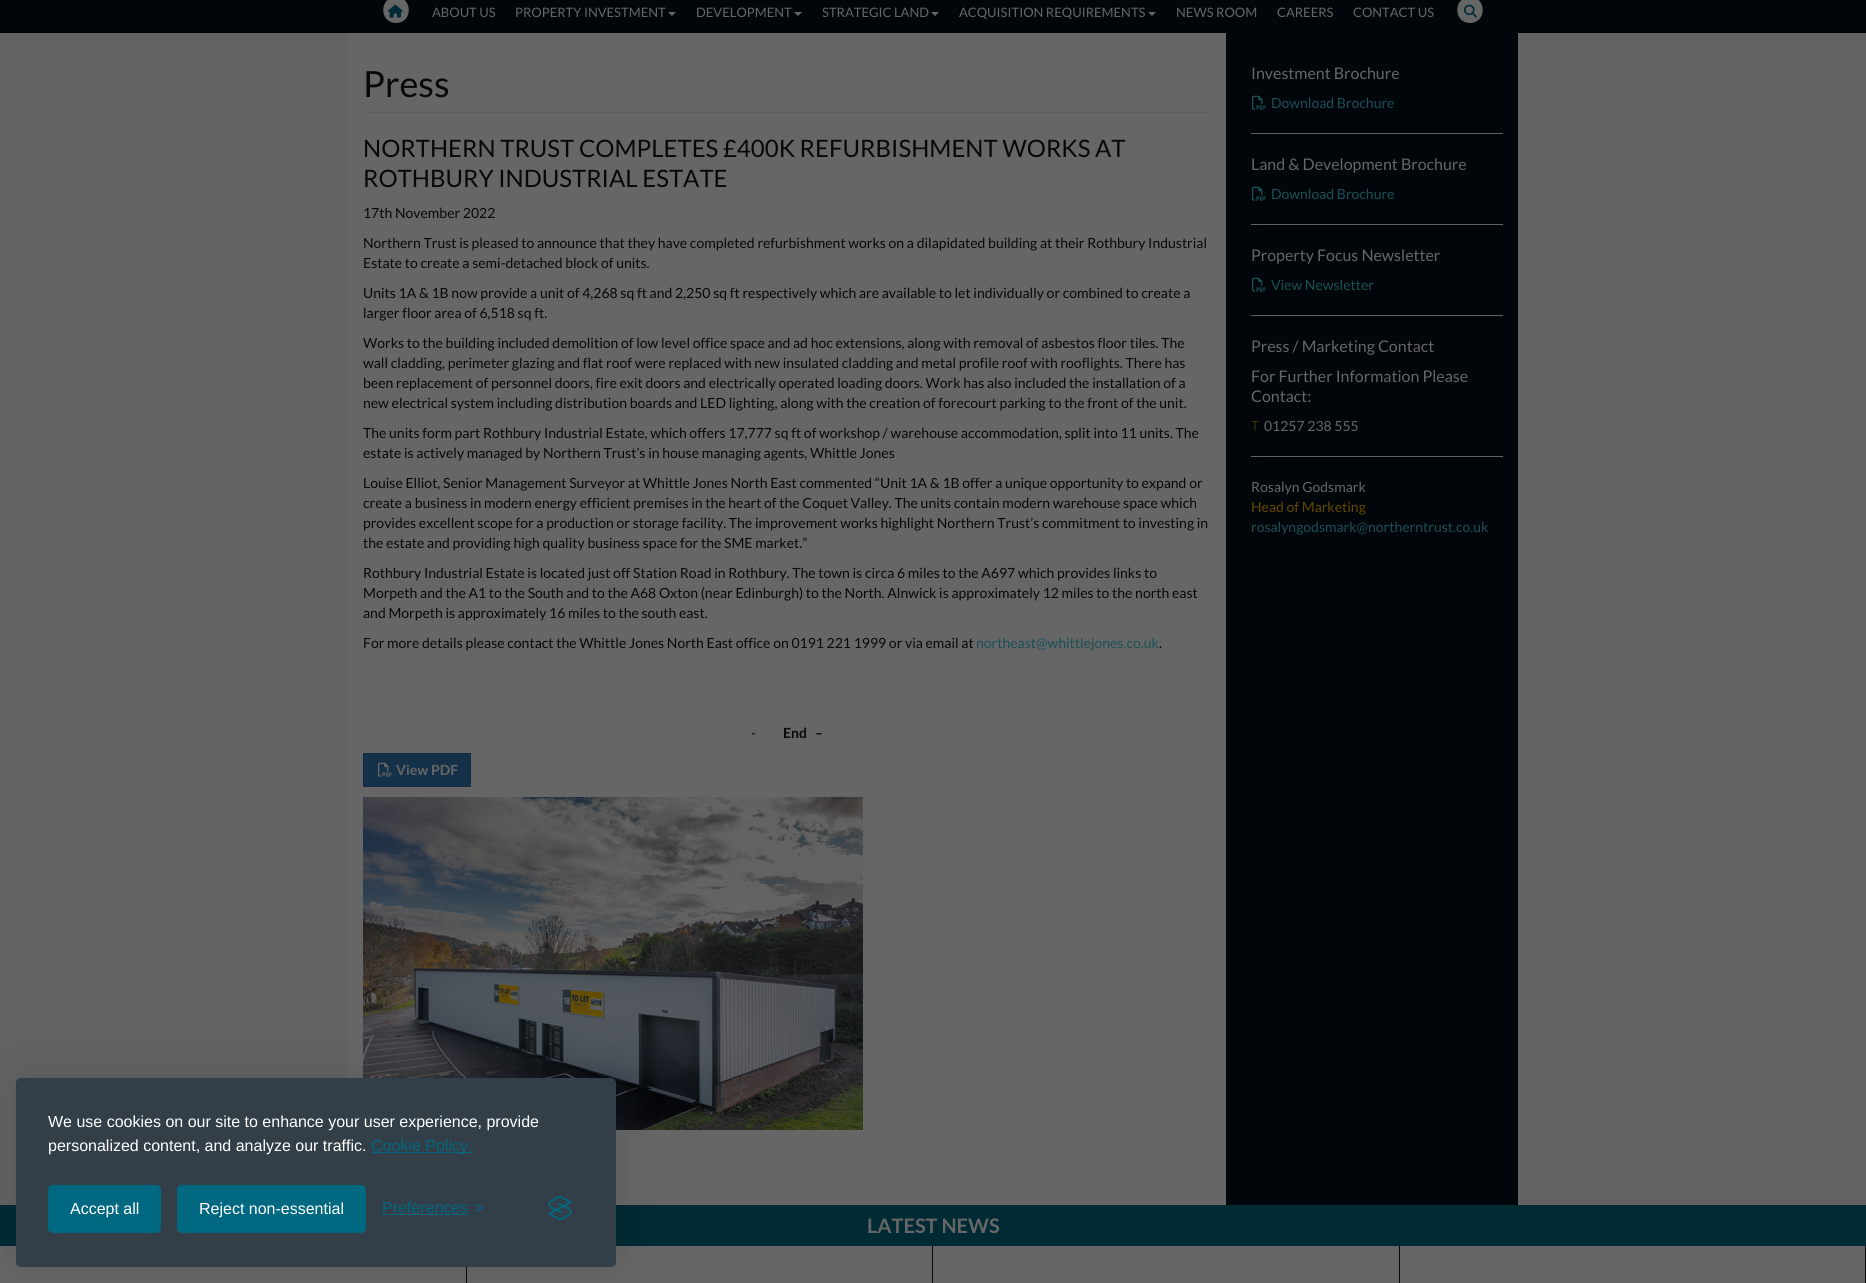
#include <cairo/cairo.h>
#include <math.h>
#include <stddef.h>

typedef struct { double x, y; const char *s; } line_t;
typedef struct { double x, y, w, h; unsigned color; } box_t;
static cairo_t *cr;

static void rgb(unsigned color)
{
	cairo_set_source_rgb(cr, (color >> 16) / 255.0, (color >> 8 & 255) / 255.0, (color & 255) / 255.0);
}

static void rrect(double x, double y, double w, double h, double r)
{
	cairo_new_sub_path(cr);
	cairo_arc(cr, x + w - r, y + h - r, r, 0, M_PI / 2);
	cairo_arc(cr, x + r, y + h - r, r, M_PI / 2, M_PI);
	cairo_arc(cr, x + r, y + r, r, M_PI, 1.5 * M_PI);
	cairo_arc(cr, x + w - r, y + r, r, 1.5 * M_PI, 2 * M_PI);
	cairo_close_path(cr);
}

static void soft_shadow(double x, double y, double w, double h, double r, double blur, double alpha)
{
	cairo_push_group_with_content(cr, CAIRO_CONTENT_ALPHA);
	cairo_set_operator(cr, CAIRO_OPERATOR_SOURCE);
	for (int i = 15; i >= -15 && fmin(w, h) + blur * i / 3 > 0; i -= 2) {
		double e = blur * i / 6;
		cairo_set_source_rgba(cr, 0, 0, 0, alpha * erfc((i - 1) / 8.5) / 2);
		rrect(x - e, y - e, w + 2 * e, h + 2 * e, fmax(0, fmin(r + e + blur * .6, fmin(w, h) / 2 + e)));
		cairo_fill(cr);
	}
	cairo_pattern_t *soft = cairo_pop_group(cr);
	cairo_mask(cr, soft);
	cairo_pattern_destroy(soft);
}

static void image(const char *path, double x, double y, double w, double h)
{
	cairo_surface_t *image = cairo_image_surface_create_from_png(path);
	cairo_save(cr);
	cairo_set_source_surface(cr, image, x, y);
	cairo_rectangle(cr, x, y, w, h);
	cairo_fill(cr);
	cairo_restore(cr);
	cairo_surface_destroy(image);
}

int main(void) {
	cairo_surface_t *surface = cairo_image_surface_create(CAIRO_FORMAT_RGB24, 1866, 1283);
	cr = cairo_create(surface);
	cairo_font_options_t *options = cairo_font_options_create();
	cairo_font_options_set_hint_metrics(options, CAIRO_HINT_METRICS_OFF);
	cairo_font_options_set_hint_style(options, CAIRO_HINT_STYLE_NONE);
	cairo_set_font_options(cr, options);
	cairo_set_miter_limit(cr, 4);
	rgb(0x626262);
	cairo_paint(cr);
	rgb(0x00060a);
	cairo_rectangle(cr, 0, 0, 1866, 33);
	cairo_fill(cr);
	rgb(0x666666);
	cairo_new_path(cr);
	cairo_move_to(cr, 396, 23);
	cairo_curve_to(cr, 413, 23, 413, -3, 396, -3);
	cairo_curve_to(cr, 379, -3, 379, 23, 396, 23);
	cairo_close_path(cr);
	cairo_fill(cr);
	image("img/1.png", 388, 4, 15, 14);
	cairo_new_path(cr);
	cairo_move_to(cr, 668, 12);
	cairo_line_to(cr, 676, 12);
	cairo_line_to(cr, 672, 16);
	cairo_close_path(cr);
	cairo_fill(cr);
	cairo_new_path(cr);
	cairo_move_to(cr, 794, 12);
	cairo_line_to(cr, 802, 12);
	cairo_line_to(cr, 798, 16);
	cairo_close_path(cr);
	cairo_fill(cr);
	cairo_new_path(cr);
	cairo_move_to(cr, 931, 12);
	cairo_line_to(cr, 939, 12);
	cairo_line_to(cr, 935, 16);
	cairo_close_path(cr);
	cairo_fill(cr);
	cairo_new_path(cr);
	cairo_move_to(cr, 1148, 12);
	cairo_line_to(cr, 1156, 12);
	cairo_line_to(cr, 1152, 16);
	cairo_close_path(cr);
	cairo_fill(cr);
	cairo_new_path(cr);
	cairo_move_to(cr, 1470, 23);
	cairo_curve_to(cr, 1487, 23, 1487, -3, 1470, -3);
	cairo_curve_to(cr, 1453, -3, 1453, 23, 1470, 23);
	cairo_close_path(cr);
	cairo_fill(cr);
	image("img/2.png", 1464, 4, 13, 14);
	cairo_rectangle(cr, 348, 33, 878, 1172);
	cairo_fill(cr);
	rgb(0x5f5f5f);
	cairo_rectangle(cr, 363, 112, 848, 1);
	cairo_fill(cr);
	rgb(0x143149);
	cairo_rectangle(cr, 363.5, 753.5, 107, 33);
	cairo_fill_preserve(cr);
	rgb(0x122c42);
	cairo_set_line_width(cr, 1);
	cairo_stroke(cr);
	image("img/3.png", 378, 762, 14, 15);
	image("img/4.png", 363, 797, 500, 333);
	rgb(0x00060a);
	cairo_rectangle(cr, 1226, 33, 292, 1172);
	cairo_fill(cr);
	image("img/5.png", 1252, 95, 14, 15);
	rgb(0x5f5f5f);
	cairo_rectangle(cr, 1251, 133, 252, 1);
	cairo_fill(cr);
	image("img/5.png", 1252, 186, 14, 15);
	cairo_rectangle(cr, 1251, 224, 252, 1);
	cairo_fill(cr);
	image("img/5.png", 1252, 277, 14, 15);
	{
		static const box_t items[] = {
			{1251, 315, 252, 1, 0x5f5f5f},
			{1251, 456, 252, 1, 0x5f5f5f},
			{0, 1205, 1866, 41, 0x002a34},
			{0, 1246, 466, 37, 0x666666},
			{466, 1267, 1, 16, 0x080808},
			{467, 1246, 465, 37, 0x666666},
		};
		for (size_t i = 0; i < sizeof items / sizeof *items; i++) {
			rgb(items[i].color);
			cairo_rectangle(cr, items[i].x, items[i].y, items[i].w, items[i].h);
			cairo_fill(cr);
		}
	}
	rgb(0x000000);
	soft_shadow(16, 1078, 600, 189, 5, 25, 0.1);
	rgb(0x323e48);
	rrect(16, 1078, 600, 189, 5);
	cairo_fill(cr);
	rgb(0x006881);
	cairo_rectangle(cr, 371, 1152, 101, 1);
	cairo_fill(cr);
	rrect(49, 1186, 111, 46, 4);
	cairo_fill_preserve(cr);
	cairo_set_line_width(cr, 2);
	cairo_stroke(cr);
	rrect(178, 1186, 187, 46, 4);
	cairo_fill_preserve(cr);
	cairo_stroke(cr);
	cairo_rectangle(cr, 382, 1214, 87, 1);
	cairo_fill(cr);
	image("img/6.png", 548, 1196, 24, 24);
	{
		static const box_t items[] = {
			{932, 1246, 1, 37, 0x080808},
			{933, 1246, 466, 37, 0x666666},
			{1399, 1246, 1, 37, 0x080808},
			{1400, 1246, 465, 37, 0x666666},
			{1865, 1246, 1, 37, 0x080808},
		};
		for (size_t i = 0; i < sizeof items / sizeof *items; i++) {
			rgb(items[i].color);
			cairo_rectangle(cr, items[i].x, items[i].y, items[i].w, items[i].h);
			cairo_fill(cr);
		}
	}
	cairo_select_font_face(cr, "Lato", CAIRO_FONT_SLANT_NORMAL, CAIRO_FONT_WEIGHT_NORMAL);
	cairo_set_font_size(cr, 13);
	rgb(0x666666);
	{
		static const line_t items[] = {
			{432, 17, "ABOUT US"},
			{515, 17, "PROPERTY INVESTMENT"},
			{696, 17, "DEVELOPMENT"},
			{822, 17, "STRATEGIC LAND"},
			{959, 17, "ACQUISITION REQUIREMENTS"},
			{1176, 17, "NEWS ROOM"},
			{1277, 17, "CAREERS"},
			{1353, 17, "CONTACT US"},
		};
		for (size_t i = 0; i < sizeof items / sizeof *items; i++) {
			cairo_move_to(cr, items[i].x, items[i].y);
			cairo_show_text(cr, items[i].s);
		}
	}
	cairo_set_font_size(cr, 36);
	rgb(0x080808);
	cairo_move_to(cr, 363, 97);
	cairo_show_text(cr, "Press");
	cairo_set_font_size(cr, 24);
	cairo_move_to(cr, 363, 157);
	cairo_show_text(cr, "NORTHERN TRUST COMPLETES £400K REFURBISHMENT WORKS AT");
	cairo_move_to(cr, 363, 187);
	cairo_show_text(cr, "ROTHBURY INDUSTRIAL ESTATE");
	cairo_set_font_size(cr, 14);
	{
		static const line_t items[] = {
			{363, 218, "17th November 2022"},
			{363, 248, "Northern Trust is pleased to announce that they have completed refurbishment works on a dilapidated building at their Rothbury Industrial"},
			{363, 268, "Estate to create a semi-detached block of units."},
			{363, 298, "Units 1A & 1B now provide a unit of 4,268 sq ft and 2,250 sq ft respectively which are available to let individually or combined to create a"},
			{363, 318, "larger floor area of 6,518 sq ft."},
			{363, 348, "Works to the building included demolition of low level office space and ad hoc extensions, along with removal of asbestos floor tiles. The"},
			{363, 368, "wall cladding, perimeter glazing and flat roof were replaced with new insulated cladding and metal profile roof with rooflights. There has"},
			{363, 388, "been replacement of personnel doors, fire exit doors and electrically operated loading doors. Work has also included the installation of a"},
			{363, 408, "new electrical system including distribution boards and LED lighting, along with the creation of forecourt parking to the front of the unit."},
			{363, 438, "The units form part Rothbury Industrial Estate, which offers 17,777 sq ft of workshop / warehouse accommodation, split into 11 units. The"},
			{363, 458, "estate is actively managed by Northern Trust’s in house managing agents, Whittle Jones"},
			{363, 488, "Louise Elliot, Senior Management Surveyor at Whittle Jones North East commented “Unit 1A & 1B offer a unique opportunity to expand or"},
			{363, 508, "create a business in modern energy efficient premises in the heart of the Coquet Valley. The units contain modern warehouse space which"},
			{363, 528, "provides excellent scope for a production or storage facility. The improvement works highlight Northern Trust’s commitment to investing in"},
			{363, 548, "the estate and providing high quality business space for the SME market.”"},
			{363, 578, "Rothbury Industrial Estate is located just off Station Road in Rothbury. The town is circa 6 miles to the A697 which provides links to"},
			{363, 598, "Morpeth and the A1 to the South and to the A68 Oxton (near Edinburgh) to the North. Alnwick is approximately 12 miles to the north east"},
			{363, 618, "and Morpeth is approximately 16 miles to the south east."},
			{363, 648, "For more details please contact the Whittle Jones North East office on 0191 221 1999 or via email at"},
		};
		for (size_t i = 0; i < sizeof items / sizeof *items; i++) {
			cairo_move_to(cr, items[i].x, items[i].y);
			cairo_show_text(cr, items[i].s);
		}
	}
	rgb(0x1a5056);
	cairo_move_to(cr, 976, 648);
	cairo_show_text(cr, "northeast@whittlejones.co.uk");
	rgb(0x080808);
	cairo_move_to(cr, 1159, 648);
	cairo_show_text(cr, ".");
	cairo_move_to(cr, 751, 738);
	cairo_show_text(cr, "-");
	cairo_select_font_face(cr, "Lato", CAIRO_FONT_SLANT_NORMAL, CAIRO_FONT_WEIGHT_BOLD);
	cairo_move_to(cr, 783, 738);
	cairo_show_text(cr, "End   –");
	rgb(0x666666);
	cairo_move_to(cr, 396, 775);
	cairo_show_text(cr, "View PDF");
	cairo_select_font_face(cr, "Lato", CAIRO_FONT_SLANT_NORMAL, CAIRO_FONT_WEIGHT_NORMAL);
	cairo_set_font_size(cr, 16);
	cairo_move_to(cr, 1251, 79);
	cairo_show_text(cr, "Investment Brochure");
	cairo_set_font_size(cr, 14);
	rgb(0x1a5056);
	cairo_move_to(cr, 1271, 108);
	cairo_show_text(cr, "Download Brochure");
	cairo_set_font_size(cr, 16);
	rgb(0x666666);
	cairo_move_to(cr, 1251, 170);
	cairo_show_text(cr, "Land & Development Brochure");
	cairo_set_font_size(cr, 14);
	rgb(0x1a5056);
	cairo_move_to(cr, 1271, 199);
	cairo_show_text(cr, "Download Brochure");
	cairo_set_font_size(cr, 16);
	rgb(0x666666);
	cairo_move_to(cr, 1251, 261);
	cairo_show_text(cr, "Property Focus Newsletter");
	cairo_set_font_size(cr, 14);
	rgb(0x1a5056);
	cairo_move_to(cr, 1271, 290);
	cairo_show_text(cr, "View Newsletter");
	cairo_set_font_size(cr, 16);
	rgb(0x666666);
	{
		static const line_t items[] = {
			{1251, 352, "Press / Marketing Contact"},
			{1251, 382, "For Further Information Please"},
			{1251, 402, "Contact:"},
		};
		for (size_t i = 0; i < sizeof items / sizeof *items; i++) {
			cairo_move_to(cr, items[i].x, items[i].y);
			cairo_show_text(cr, items[i].s);
		}
	}
	cairo_select_font_face(cr, "Lato Light", CAIRO_FONT_SLANT_NORMAL, CAIRO_FONT_WEIGHT_NORMAL);
	cairo_set_font_size(cr, 14);
	rgb(0x664700);
	cairo_move_to(cr, 1251, 431);
	cairo_show_text(cr, "T");
	cairo_select_font_face(cr, "Lato", CAIRO_FONT_SLANT_NORMAL, CAIRO_FONT_WEIGHT_NORMAL);
	rgb(0x666666);
	cairo_move_to(cr, 1264, 431);
	cairo_show_text(cr, "01257 238 555");
	cairo_move_to(cr, 1251, 492);
	cairo_show_text(cr, "Rosalyn Godsmark");
	rgb(0x664700);
	cairo_move_to(cr, 1251, 512);
	cairo_show_text(cr, "Head of Marketing");
	rgb(0x1a5056);
	cairo_move_to(cr, 1251, 532);
	cairo_show_text(cr, "rosalyngodsmark@northerntrust.co.uk");
	cairo_select_font_face(cr, "Liberation Sans", CAIRO_FONT_SLANT_NORMAL, CAIRO_FONT_WEIGHT_NORMAL);
	cairo_set_font_size(cr, 16);
	rgb(0xffffff);
	cairo_move_to(cr, 48, 1127);
	cairo_show_text(cr, "We use cookies on our site to enhance your user experience, provide");
	cairo_move_to(cr, 48, 1151);
	cairo_show_text(cr, "personalized content, and analyze our traffic.");
	rgb(0x006881);
	cairo_move_to(cr, 371, 1151);
	cairo_show_text(cr, "Cookie Policy.");
	rgb(0xffffff);
	cairo_move_to(cr, 70, 1214);
	cairo_show_text(cr, "Accept all");
	cairo_move_to(cr, 199, 1214);
	cairo_show_text(cr, "Reject non-essential");
	rgb(0x006881);
	cairo_move_to(cr, 382, 1213);
	cairo_show_text(cr, "Preferences");
	cairo_move_to(cr, 474, 1213);
	cairo_show_text(cr, ">");
	cairo_select_font_face(cr, "Lato", CAIRO_FONT_SLANT_NORMAL, CAIRO_FONT_WEIGHT_BOLD);
	cairo_set_font_size(cr, 20);
	rgb(0x666666);
	cairo_move_to(cr, 867, 1233);
	cairo_show_text(cr, "LATEST NEWS");
	cairo_surface_write_to_png(surface, "page.png");
	cairo_font_options_destroy(options);
	cairo_destroy(cr);
	cairo_surface_destroy(surface);
	return 0;
}
